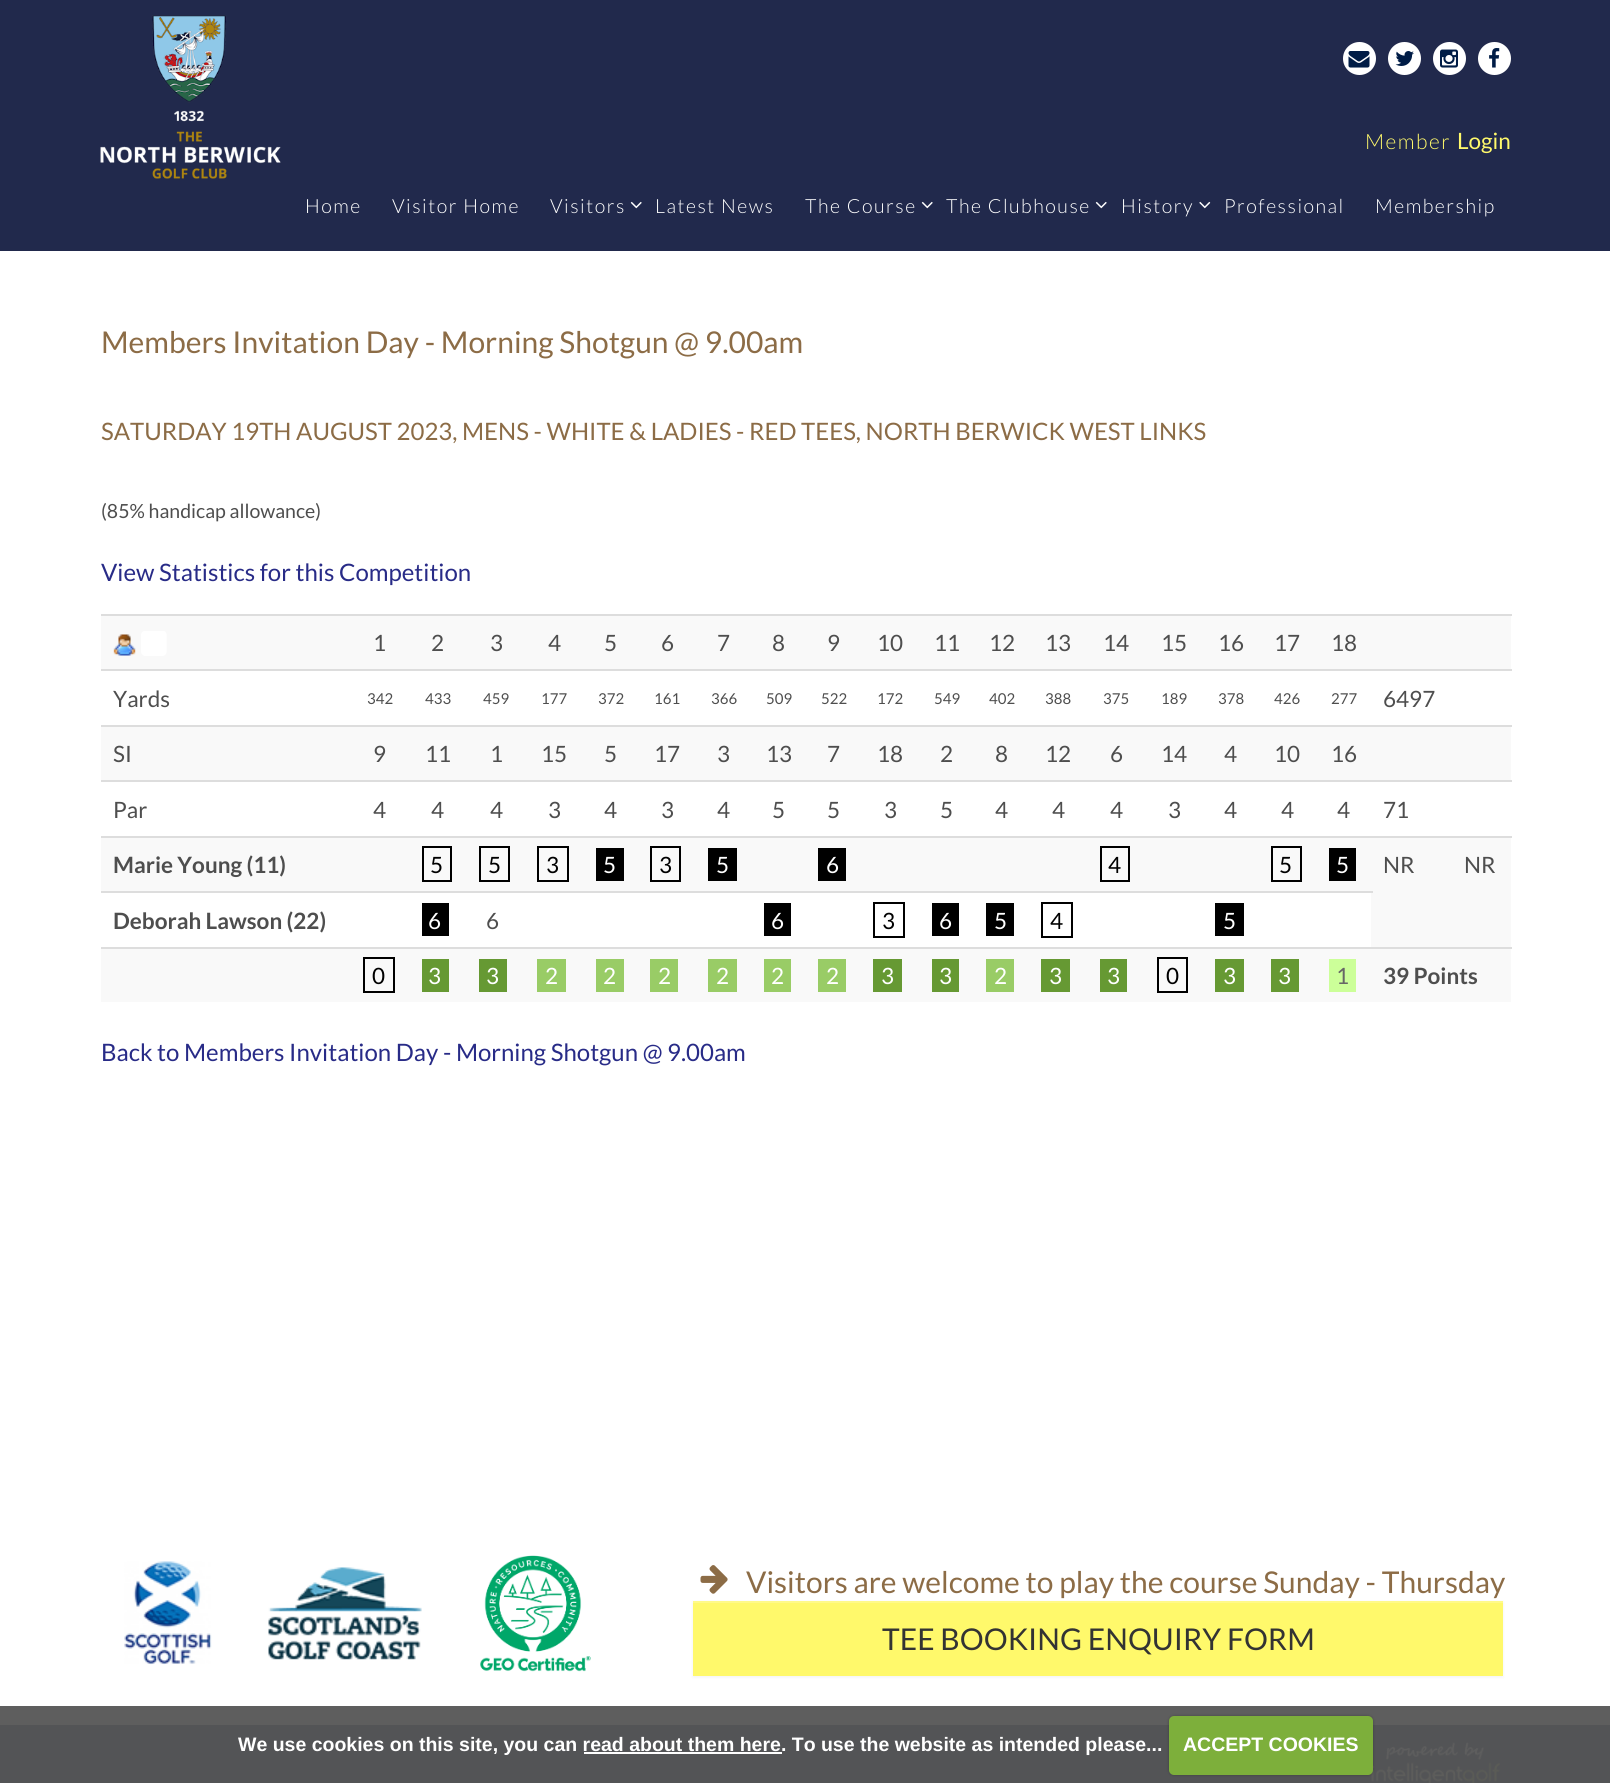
#include <cairo/cairo.h>
#include <math.h>
#include <stddef.h>

typedef struct { double x, y; const char *s; } line_t;
typedef struct { double x, y, w, h; unsigned color; } box_t;
static cairo_t *cr;

static void rgb(unsigned color)
{
	cairo_set_source_rgb(cr, (color >> 16) / 255.0, (color >> 8 & 255) / 255.0, (color & 255) / 255.0);
}

static void tracked(double x, double y, const char *s, double letter, double word)
{
	cairo_move_to(cr, x, y);
	while (*s) {
		char ch[5] = {0};
		int n = 0;
		do ch[n++] = *s++; while ((*s & 0xC0) == 0x80);
		cairo_show_text(cr, ch);
		cairo_rel_move_to(cr, letter + word * (*ch == ' '), 0);
	}
}

static void rrect(double x, double y, double w, double h, double r)
{
	cairo_new_sub_path(cr);
	cairo_arc(cr, x + w - r, y + h - r, r, 0, M_PI / 2);
	cairo_arc(cr, x + r, y + h - r, r, M_PI / 2, M_PI);
	cairo_arc(cr, x + r, y + r, r, M_PI, 1.5 * M_PI);
	cairo_arc(cr, x + w - r, y + r, r, 1.5 * M_PI, 2 * M_PI);
	cairo_close_path(cr);
}

static void soft_shadow(double x, double y, double w, double h, double r, double blur, double alpha)
{
	cairo_push_group_with_content(cr, CAIRO_CONTENT_ALPHA);
	cairo_set_operator(cr, CAIRO_OPERATOR_SOURCE);
	for (int i = 15; i >= -15 && fmin(w, h) + blur * i / 3 > 0; i -= 2) {
		double e = blur * i / 6;
		cairo_set_source_rgba(cr, 0, 0, 0, alpha * erfc((i - 1) / 8.5) / 2);
		rrect(x - e, y - e, w + 2 * e, h + 2 * e, fmax(0, fmin(r + e + blur * .6, fmin(w, h) / 2 + e)));
		cairo_fill(cr);
	}
	cairo_pattern_t *soft = cairo_pop_group(cr);
	cairo_mask(cr, soft);
	cairo_pattern_destroy(soft);
}

static void image(const char *path, double x, double y, double w, double h)
{
	cairo_surface_t *image = cairo_image_surface_create_from_png(path);
	cairo_save(cr);
	cairo_set_source_surface(cr, image, x, y);
	cairo_rectangle(cr, x, y, w, h);
	cairo_fill(cr);
	cairo_restore(cr);
	cairo_surface_destroy(image);
}

int main(void) {
	cairo_surface_t *surface = cairo_image_surface_create(CAIRO_FORMAT_RGB24, 1610, 1783);
	cr = cairo_create(surface);
	cairo_font_options_t *options = cairo_font_options_create();
	cairo_font_options_set_hint_metrics(options, CAIRO_HINT_METRICS_OFF);
	cairo_font_options_set_hint_style(options, CAIRO_HINT_STYLE_NONE);
	cairo_set_font_options(cr, options);
	cairo_set_miter_limit(cr, 4);
	rgb(0xffffff);
	cairo_paint(cr);
	rgb(0x5e5e5e);
	cairo_rectangle(cr, 0, 1706, 1610, 19);
	cairo_fill(cr);
	rgb(0x21294c);
	cairo_rectangle(cr, 0, 0, 1610, 251);
	cairo_fill(cr);
	image("img/1.png", 100, 15, 181, 164);
	rgb(0xffffff);
	cairo_arc(cr, 1359.5, 58.5, 16.5, 0, 2 * M_PI);
	cairo_fill(cr);
	image("img/2.png", 1348, 51, 22, 17);
	cairo_arc(cr, 1404.5, 58.5, 16.5, 0, 2 * M_PI);
	cairo_fill(cr);
	image("img/3.png", 1395, 51, 19, 15);
	cairo_arc(cr, 1449.5, 58.5, 16.5, 0, 2 * M_PI);
	cairo_fill(cr);
	image("img/4.png", 1440, 49, 18, 19);
	cairo_arc(cr, 1494.5, 58.5, 16.5, 0, 2 * M_PI);
	cairo_fill(cr);
	image("img/5.png", 1489, 48, 11, 20);
	image("img/6.png", 630, 201, 12, 8);
	image("img/6.png", 921, 201, 12, 8);
	image("img/6.png", 1095, 201, 12, 8);
	image("img/7.png", 1199, 201, 12, 8);
	rgb(0xdddddd);
	cairo_rectangle(cr, 101, 614, 1411, 2);
	cairo_fill(cr);
	rgb(0xf9f9f9);
	cairo_rectangle(cr, 101, 616, 1410, 53);
	cairo_fill(cr);
	image("img/8.png", 113, 634, 23, 22);
	image("img/9.png", 141, 631, 26, 25);
	{
		static const box_t items[] = {
			{101, 669, 1411, 2, 0xdddddd},
			{101, 725, 1411, 2, 0xdddddd},
			{101, 727, 1410, 53, 0xf9f9f9},
			{101, 780, 1411, 2, 0xdddddd},
			{101, 838, 1270, 53, 0xf9f9f9},
		};
		for (size_t i = 0; i < sizeof items / sizeof *items; i++) {
			rgb(items[i].color);
			cairo_rectangle(cr, items[i].x, items[i].y, items[i].w, items[i].h);
			cairo_fill(cr);
		}
	}
	cairo_rectangle(cr, 423, 847, 28, 34);
	rgb(0x000000);
	cairo_stroke(cr);
	cairo_rectangle(cr, 480, 847, 29, 34);
	cairo_stroke(cr);
	cairo_rectangle(cr, 538, 847, 30, 34);
	cairo_stroke(cr);
	cairo_rectangle(cr, 596, 848, 28, 33);
	cairo_fill(cr);
	cairo_rectangle(cr, 651, 847, 29, 34);
	cairo_stroke(cr);
	cairo_rectangle(cr, 708, 848, 29, 33);
	cairo_fill(cr);
	cairo_rectangle(cr, 818, 848, 28, 33);
	cairo_fill(cr);
	cairo_rectangle(cr, 1101, 847, 28, 34);
	cairo_stroke(cr);
	cairo_rectangle(cr, 1272, 847, 29, 34);
	cairo_stroke(cr);
	{
		static const box_t items[] = {
			{1329, 848, 27, 33, 0x000000},
			{1371, 838, 140, 109, 0xf9f9f9},
			{101, 836, 1411, 2, 0xdddddd},
			{101, 891, 1272, 2, 0xdddddd},
			{422, 903, 27, 33, 0x000000},
			{764, 903, 27, 33, 0x000000},
		};
		for (size_t i = 0; i < sizeof items / sizeof *items; i++) {
			rgb(items[i].color);
			cairo_rectangle(cr, items[i].x, items[i].y, items[i].w, items[i].h);
			cairo_fill(cr);
		}
	}
	cairo_rectangle(cr, 874, 903, 30, 34);
	cairo_stroke(cr);
	cairo_rectangle(cr, 932, 903, 27, 33);
	cairo_fill(cr);
	cairo_rectangle(cr, 986, 903, 28, 33);
	cairo_fill(cr);
	cairo_rectangle(cr, 1042, 903, 30, 34);
	cairo_stroke(cr);
	cairo_rectangle(cr, 1215, 903, 29, 33);
	cairo_fill(cr);
	rgb(0xf9f9f9);
	cairo_rectangle(cr, 101, 949, 1410, 53);
	cairo_fill(cr);
	cairo_rectangle(cr, 364, 958, 30, 34);
	rgb(0x000000);
	cairo_stroke(cr);
	{
		static const box_t items[] = {
			{422, 959, 27, 33, 0x669933},
			{479, 959, 28, 33, 0x669933},
			{537, 959, 29, 33, 0x99cc66},
			{596, 959, 28, 33, 0x99cc66},
			{650, 959, 28, 33, 0x99cc66},
			{708, 959, 29, 33, 0x99cc66},
			{764, 959, 27, 33, 0x99cc66},
			{818, 959, 28, 33, 0x99cc66},
			{873, 959, 29, 33, 0x669933},
			{932, 959, 27, 33, 0x669933},
			{986, 959, 28, 33, 0x99cc66},
			{1041, 959, 29, 33, 0x669933},
			{1100, 959, 27, 33, 0x669933},
		};
		for (size_t i = 0; i < sizeof items / sizeof *items; i++) {
			rgb(items[i].color);
			cairo_rectangle(cr, items[i].x, items[i].y, items[i].w, items[i].h);
			cairo_fill(cr);
		}
	}
	cairo_rectangle(cr, 1158, 958, 29, 34);
	rgb(0x000000);
	cairo_stroke(cr);
	{
		static const box_t items[] = {
			{1215, 959, 29, 33, 0x669933},
			{1271, 959, 28, 33, 0x669933},
			{1329, 959, 27, 33, 0xccff99},
			{101, 947, 1411, 2, 0xdddddd},
		};
		for (size_t i = 0; i < sizeof items / sizeof *items; i++) {
			rgb(items[i].color);
			cairo_rectangle(cr, items[i].x, items[i].y, items[i].w, items[i].h);
			cairo_fill(cr);
		}
	}
	image("img/10.png", 124, 1561, 88, 104);
	image("img/11.png", 268, 1567, 154, 93);
	image("img/12.png", 480, 1555, 111, 117);
	image("img/13.png", 700, 1565, 28, 29);
	rgb(0x000000);
	soft_shadow(693, 1602, 810, 75, 0, 1.5, 0.05);
	{
		static const box_t items[] = {
			{693, 1603, 810, 73, 0xfff96b},
			{693, 1601, 810, 2, 0xfffa89},
			{0, 1725, 1610, 58, 0x535456},
		};
		for (size_t i = 0; i < sizeof items / sizeof *items; i++) {
			rgb(items[i].color);
			cairo_rectangle(cr, items[i].x, items[i].y, items[i].w, items[i].h);
			cairo_fill(cr);
		}
	}
	image("img/14.png", 1371, 1742, 130, 41);
	rgb(0x000000);
	soft_shadow(1169, 1716, 204, 59, 5, 1.5, 0.25);
	rgb(0x7daf3b);
	rrect(1169, 1716, 204, 59, 5);
	cairo_fill(cr);
	rgb(0xffffff);
	cairo_rectangle(cr, 584, 1752, 198, 2);
	cairo_fill(cr);
	cairo_select_font_face(cr, "Lato Light", CAIRO_FONT_SLANT_NORMAL, CAIRO_FONT_WEIGHT_NORMAL);
	cairo_set_font_size(cr, 21);
	rgb(0xfff96b);
	tracked(1365, 149, "Member", 1.5, 0);
	cairo_select_font_face(cr, "Lato", CAIRO_FONT_SLANT_NORMAL, CAIRO_FONT_WEIGHT_NORMAL);
	cairo_set_font_size(cr, 22.5);
	cairo_move_to(cr, 1457, 149);
	cairo_show_text(cr, "Login");
	cairo_select_font_face(cr, "Lato Light", CAIRO_FONT_SLANT_NORMAL, CAIRO_FONT_WEIGHT_NORMAL);
	cairo_set_font_size(cr, 19.5);
	rgb(0xffffff);
	{
		static const line_t items[] = {
			{305, 213, "Home"},
			{392, 213, "Visitor Home"},
			{550, 213, "Visitors"},
			{655, 213, "Latest News"},
			{805, 213, "The Course"},
			{946, 213, "The Clubhouse"},
			{1121, 213, "History"},
			{1224, 213, "Professional"},
			{1375, 213, "Membership"},
		};
		for (size_t i = 0; i < sizeof items / sizeof *items; i++) {
			tracked(items[i].x, items[i].y, items[i].s, 1.5, 0);
		}
	}
	cairo_select_font_face(cr, "Lato", CAIRO_FONT_SLANT_NORMAL, CAIRO_FONT_WEIGHT_NORMAL);
	cairo_set_font_size(cr, 30);
	rgb(0x8c6c46);
	cairo_move_to(cr, 101, 353);
	cairo_show_text(cr, "Members Invitation Day - Morning Shotgun @ 9.00am");
	cairo_set_font_size(cr, 24);
	cairo_move_to(cr, 101, 440);
	cairo_show_text(cr, "SATURDAY 19TH AUGUST 2023, MENS - WHITE & LADIES - RED TEES, NORTH BERWICK WEST LINKS");
	cairo_set_font_size(cr, 19.5);
	rgb(0x4e4e4e);
	cairo_move_to(cr, 101, 518);
	cairo_show_text(cr, "(85% handicap allowance)");
	cairo_set_font_size(cr, 24);
	rgb(0x282b87);
	cairo_move_to(cr, 101, 581);
	cairo_show_text(cr, "View Statistics for this Competition");
	cairo_set_font_size(cr, 22.5);
	rgb(0x4e4e4e);
	{
		static const line_t items[] = {
			{373, 651, "1"},
			{431, 651, "2"},
			{490, 651, "3"},
			{548, 651, "4"},
			{604, 651, "5"},
			{661, 651, "6"},
			{717, 651, "7"},
			{772, 651, "8"},
			{827, 651, "9"},
			{877, 651, "10"},
			{934, 651, "11"},
			{989, 651, "12"},
			{1045, 651, "13"},
			{1103, 651, "14"},
			{1161, 651, "15"},
			{1218, 651, "16"},
			{1274, 651, "17"},
			{1331, 651, "18"},
			{113, 707, "Yards"},
		};
		for (size_t i = 0; i < sizeof items / sizeof *items; i++) {
			cairo_move_to(cr, items[i].x, items[i].y);
			cairo_show_text(cr, items[i].s);
		}
	}
	cairo_set_font_size(cr, 15);
	{
		static const line_t items[] = {
			{367, 704, "342"},
			{425, 704, "433"},
			{483, 704, "459"},
			{541, 704, "177"},
			{598, 704, "372"},
			{654, 704, "161"},
			{711, 704, "366"},
			{766, 704, "509"},
			{821, 704, "522"},
			{877, 704, "172"},
			{934, 704, "549"},
			{989, 704, "402"},
			{1045, 704, "388"},
			{1103, 704, "375"},
			{1161, 704, "189"},
			{1218, 704, "378"},
			{1274, 704, "426"},
			{1331, 704, "277"},
		};
		for (size_t i = 0; i < sizeof items / sizeof *items; i++) {
			cairo_move_to(cr, items[i].x, items[i].y);
			cairo_show_text(cr, items[i].s);
		}
	}
	cairo_set_font_size(cr, 22.5);
	{
		static const line_t items[] = {
			{1383, 707, "6497"},
			{113, 762, "SI"},
			{373, 762, "9"},
			{425, 762, "11"},
			{490, 762, "1"},
			{541, 762, "15"},
			{604, 762, "5"},
			{654, 762, "17"},
			{717, 762, "3"},
			{766, 762, "13"},
			{827, 762, "7"},
			{877, 762, "18"},
			{940, 762, "2"},
			{995, 762, "8"},
			{1045, 762, "12"},
			{1110, 762, "6"},
			{1161, 762, "14"},
			{1224, 762, "4"},
			{1274, 762, "10"},
			{1331, 762, "16"},
			{113, 818, "Par"},
			{373, 818, "4"},
			{431, 818, "4"},
			{490, 818, "4"},
			{548, 818, "3"},
			{604, 818, "4"},
			{661, 818, "3"},
			{717, 818, "4"},
			{772, 818, "5"},
			{827, 818, "5"},
			{884, 818, "3"},
			{940, 818, "5"},
			{995, 818, "4"},
			{1052, 818, "4"},
			{1110, 818, "4"},
			{1168, 818, "3"},
			{1224, 818, "4"},
			{1281, 818, "4"},
			{1337, 818, "4"},
			{1383, 818, "71"},
		};
		for (size_t i = 0; i < sizeof items / sizeof *items; i++) {
			cairo_move_to(cr, items[i].x, items[i].y);
			cairo_show_text(cr, items[i].s);
		}
	}
	cairo_select_font_face(cr, "Lato", CAIRO_FONT_SLANT_NORMAL, CAIRO_FONT_WEIGHT_BOLD);
	cairo_move_to(cr, 113, 873);
	cairo_show_text(cr, "Marie Young (11)");
	cairo_select_font_face(cr, "Lato", CAIRO_FONT_SLANT_NORMAL, CAIRO_FONT_WEIGHT_NORMAL);
	rgb(0x000000);
	{
		static const line_t items[] = {
			{430, 873, "5"},
			{488, 873, "5"},
			{546, 873, "3"},
		};
		for (size_t i = 0; i < sizeof items / sizeof *items; i++) {
			cairo_move_to(cr, items[i].x, items[i].y);
			cairo_show_text(cr, items[i].s);
		}
	}
	rgb(0xffffff);
	cairo_move_to(cr, 603, 873);
	cairo_show_text(cr, "5");
	rgb(0x000000);
	cairo_move_to(cr, 659, 873);
	cairo_show_text(cr, "3");
	rgb(0xffffff);
	cairo_move_to(cr, 716, 873);
	cairo_show_text(cr, "5");
	cairo_move_to(cr, 826, 873);
	cairo_show_text(cr, "6");
	rgb(0x000000);
	cairo_move_to(cr, 1108, 873);
	cairo_show_text(cr, "4");
	cairo_move_to(cr, 1279, 873);
	cairo_show_text(cr, "5");
	rgb(0xffffff);
	cairo_move_to(cr, 1336, 873);
	cairo_show_text(cr, "5");
	rgb(0x4e4e4e);
	cairo_move_to(cr, 1383, 873);
	cairo_show_text(cr, "NR");
	cairo_move_to(cr, 1464, 873);
	cairo_show_text(cr, "NR");
	cairo_select_font_face(cr, "Lato", CAIRO_FONT_SLANT_NORMAL, CAIRO_FONT_WEIGHT_BOLD);
	cairo_move_to(cr, 113, 929);
	cairo_show_text(cr, "Deborah Lawson (22)");
	cairo_select_font_face(cr, "Lato", CAIRO_FONT_SLANT_NORMAL, CAIRO_FONT_WEIGHT_NORMAL);
	rgb(0xffffff);
	cairo_move_to(cr, 428, 929);
	cairo_show_text(cr, "6");
	rgb(0x4e4e4e);
	cairo_move_to(cr, 486, 929);
	cairo_show_text(cr, "6");
	rgb(0xffffff);
	cairo_move_to(cr, 771, 929);
	cairo_show_text(cr, "6");
	rgb(0x000000);
	cairo_move_to(cr, 882, 929);
	cairo_show_text(cr, "3");
	rgb(0xffffff);
	cairo_move_to(cr, 939, 929);
	cairo_show_text(cr, "6");
	cairo_move_to(cr, 994, 929);
	cairo_show_text(cr, "5");
	rgb(0x000000);
	cairo_move_to(cr, 1050, 929);
	cairo_show_text(cr, "4");
	rgb(0xffffff);
	cairo_move_to(cr, 1223, 929);
	cairo_show_text(cr, "5");
	rgb(0x000000);
	cairo_move_to(cr, 372, 984);
	cairo_show_text(cr, "0");
	rgb(0xffffff);
	{
		static const line_t items[] = {
			{428, 984, "3"},
			{486, 984, "3"},
			{545, 984, "2"},
			{603, 984, "2"},
			{658, 984, "2"},
			{716, 984, "2"},
			{771, 984, "2"},
			{826, 984, "2"},
			{881, 984, "3"},
			{939, 984, "3"},
			{994, 984, "2"},
			{1049, 984, "3"},
			{1107, 984, "3"},
		};
		for (size_t i = 0; i < sizeof items / sizeof *items; i++) {
			cairo_move_to(cr, items[i].x, items[i].y);
			cairo_show_text(cr, items[i].s);
		}
	}
	rgb(0x000000);
	cairo_move_to(cr, 1166, 984);
	cairo_show_text(cr, "0");
	rgb(0xffffff);
	cairo_move_to(cr, 1223, 984);
	cairo_show_text(cr, "3");
	cairo_move_to(cr, 1278, 984);
	cairo_show_text(cr, "3");
	rgb(0x666666);
	cairo_move_to(cr, 1336, 984);
	cairo_show_text(cr, "1");
	cairo_select_font_face(cr, "Lato", CAIRO_FONT_SLANT_NORMAL, CAIRO_FONT_WEIGHT_BOLD);
	rgb(0x4e4e4e);
	cairo_move_to(cr, 1383, 984);
	cairo_show_text(cr, "39 Points");
	cairo_select_font_face(cr, "Lato", CAIRO_FONT_SLANT_NORMAL, CAIRO_FONT_WEIGHT_NORMAL);
	cairo_set_font_size(cr, 24);
	rgb(0x282b87);
	cairo_move_to(cr, 101, 1061);
	cairo_show_text(cr, "Back to Members Invitation Day - Morning Shotgun @ 9.00am");
	cairo_set_font_size(cr, 30);
	rgb(0x8c6c46);
	cairo_move_to(cr, 746, 1593);
	cairo_show_text(cr, "Visitors are welcome to play the course Sunday - Thursday");
	rgb(0x333333);
	cairo_move_to(cr, 882, 1650);
	cairo_show_text(cr, "TEE BOOKING ENQUIRY FORM");
	cairo_select_font_face(cr, "Liberation Sans", CAIRO_FONT_SLANT_NORMAL, CAIRO_FONT_WEIGHT_BOLD);
	cairo_set_font_size(cr, 19.5);
	rgb(0xffffff);
	cairo_move_to(cr, 238, 1751);
	cairo_show_text(cr, "We use cookies on this site, you can read about them here. To use the website as intended please...");
	cairo_move_to(cr, 1183, 1751);
	cairo_show_text(cr, "ACCEPT COOKIES");
	cairo_surface_write_to_png(surface, "page.png");
	cairo_font_options_destroy(options);
	cairo_destroy(cr);
	cairo_surface_destroy(surface);
	return 0;
}
